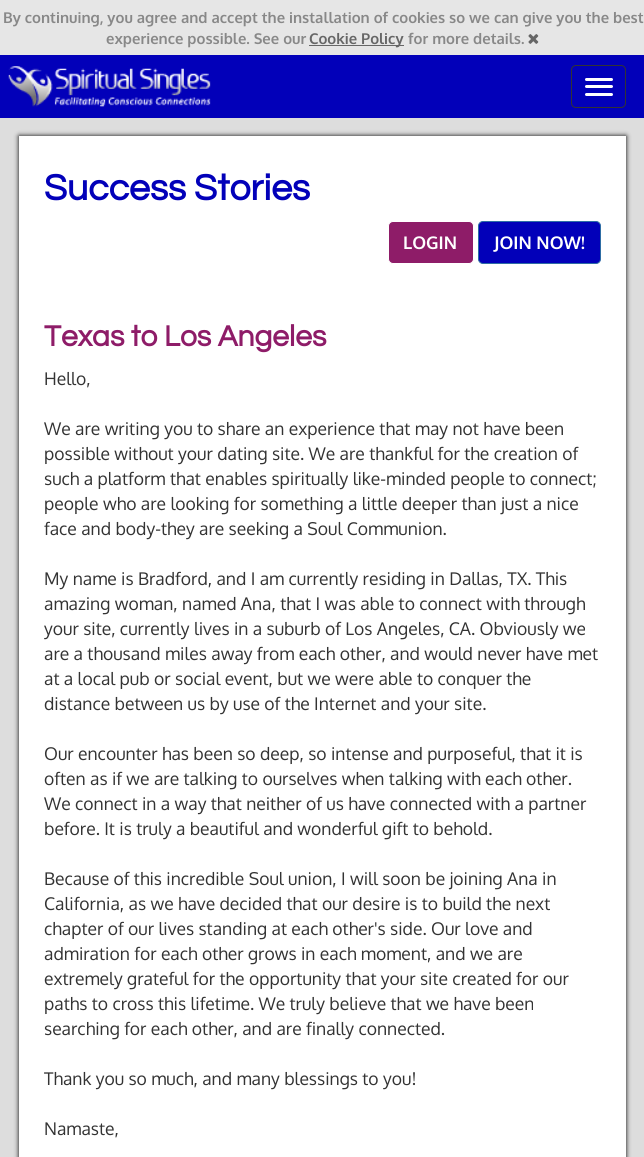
#include <cairo/cairo.h>
#include <math.h>
#include <stddef.h>

typedef struct { double x, y; const char *s; } line_t;
static cairo_t *cr;

static void rgb(unsigned color)
{
	cairo_set_source_rgb(cr, (color >> 16) / 255.0, (color >> 8 & 255) / 255.0, (color & 255) / 255.0);
}

static void rrect(double x, double y, double w, double h, double r)
{
	cairo_new_sub_path(cr);
	cairo_arc(cr, x + w - r, y + h - r, r, 0, M_PI / 2);
	cairo_arc(cr, x + r, y + h - r, r, M_PI / 2, M_PI);
	cairo_arc(cr, x + r, y + r, r, M_PI, 1.5 * M_PI);
	cairo_arc(cr, x + w - r, y + r, r, 1.5 * M_PI, 2 * M_PI);
	cairo_close_path(cr);
}

static void soft_shadow(double x, double y, double w, double h, double r, double blur, double alpha)
{
	cairo_push_group_with_content(cr, CAIRO_CONTENT_ALPHA);
	cairo_set_operator(cr, CAIRO_OPERATOR_SOURCE);
	for (int i = 15; i >= -15 && fmin(w, h) + blur * i / 3 > 0; i -= 2) {
		double e = blur * i / 6;
		cairo_set_source_rgba(cr, 0, 0, 0, alpha * erfc((i - 1) / 8.5) / 2);
		rrect(x - e, y - e, w + 2 * e, h + 2 * e, fmax(0, fmin(r + e + blur * .6, fmin(w, h) / 2 + e)));
		cairo_fill(cr);
	}
	cairo_pattern_t *soft = cairo_pop_group(cr);
	cairo_mask(cr, soft);
	cairo_pattern_destroy(soft);
}

static void image(const char *path, double x, double y, double w, double h)
{
	cairo_surface_t *image = cairo_image_surface_create_from_png(path);
	cairo_save(cr);
	cairo_set_source_surface(cr, image, x, y);
	cairo_rectangle(cr, x, y, w, h);
	cairo_fill(cr);
	cairo_restore(cr);
	cairo_surface_destroy(image);
}

int main(void) {
	cairo_surface_t *surface = cairo_image_surface_create(CAIRO_FORMAT_RGB24, 644, 1157);
	cr = cairo_create(surface);
	cairo_font_options_t *options = cairo_font_options_create();
	cairo_font_options_set_hint_metrics(options, CAIRO_HINT_METRICS_OFF);
	cairo_font_options_set_hint_style(options, CAIRO_HINT_STYLE_NONE);
	cairo_set_font_options(cr, options);
	cairo_set_miter_limit(cr, 4);
	rgb(0xdddddd);
	cairo_paint(cr);
	rgb(0xe6e6e6);
	cairo_rectangle(cr, 0, 0, 644, 55);
	cairo_fill(cr);
	rgb(0x666666);
	cairo_rectangle(cr, 309, 45, 95, 1);
	cairo_fill(cr);
	image("img/1.png", 528, 34, 11, 10);
	rgb(0x0200b9);
	cairo_rectangle(cr, 0, 55, 644, 63);
	cairo_fill(cr);
	image("img/2.png", 8, 66, 203, 41);
	rrect(571.5, 65.5, 54, 42, 4.5);
	rgb(0x333333);
	cairo_set_line_width(cr, 1);
	cairo_stroke(cr);
	rgb(0xffffff);
	rrect(585, 78, 28, 3, 1.5);
	cairo_fill(cr);
	rrect(585, 85, 28, 3, 1.5);
	cairo_fill(cr);
	rrect(585, 93, 28, 3, 1.5);
	cairo_fill(cr);
	rgb(0x000000);
	soft_shadow(19, 136, 607, 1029, 0, 2.5, 1);
	rgb(0xffffff);
	cairo_rectangle(cr, 19, 136, 607, 1021);
	cairo_fill(cr);
	rgb(0x8e1c68);
	rrect(388.5, 221.5, 85, 42, 4.5);
	cairo_fill_preserve(cr);
	rgb(0xffffff);
	cairo_stroke(cr);
	rgb(0x0200b9);
	rrect(478.5, 221.5, 122, 42, 4.5);
	cairo_fill_preserve(cr);
	rgb(0x2e6da4);
	cairo_stroke(cr);
	cairo_select_font_face(cr, "Oxygen", CAIRO_FONT_SLANT_NORMAL, CAIRO_FONT_WEIGHT_BOLD);
	cairo_set_font_size(cr, 14.9);
	rgb(0x888888);
	cairo_move_to(cr, 3, 23);
	cairo_show_text(cr, "By continuing, you agree and accept the installation of cookies so we can give you the best");
	cairo_move_to(cr, 106, 44);
	cairo_show_text(cr, "experience possible. See our");
	rgb(0x666666);
	cairo_move_to(cr, 309, 44);
	cairo_show_text(cr, "Cookie Policy");
	rgb(0x888888);
	cairo_move_to(cr, 408, 44);
	cairo_show_text(cr, "for more details.");
	cairo_select_font_face(cr, "Questrial", CAIRO_FONT_SLANT_NORMAL, CAIRO_FONT_WEIGHT_BOLD);
	cairo_set_font_size(cr, 37.5);
	rgb(0x0200b9);
	cairo_move_to(cr, 44, 200);
	cairo_show_text(cr, "Success Stories");
	cairo_select_font_face(cr, "Oxygen", CAIRO_FONT_SLANT_NORMAL, CAIRO_FONT_WEIGHT_BOLD);
	cairo_set_font_size(cr, 17.5);
	rgb(0xffffff);
	cairo_move_to(cr, 403, 249);
	cairo_show_text(cr, "LOGIN");
	cairo_move_to(cr, 494, 249);
	cairo_show_text(cr, "JOIN NOW!");
	cairo_select_font_face(cr, "Questrial", CAIRO_FONT_SLANT_NORMAL, CAIRO_FONT_WEIGHT_BOLD);
	cairo_set_font_size(cr, 30);
	rgb(0x8e1c68);
	cairo_move_to(cr, 44, 346);
	cairo_show_text(cr, "Texas to Los Angeles");
	cairo_select_font_face(cr, "Oxygen", CAIRO_FONT_SLANT_NORMAL, CAIRO_FONT_WEIGHT_NORMAL);
	cairo_set_font_size(cr, 17.5);
	rgb(0x333333);
	{
		static const line_t items[] = {
			{44, 385, "Hello,"},
			{44, 435, "We are writing you to share an experience that may not have been"},
			{44, 460, "possible without your dating site. We are thankful for the creation of"},
			{44, 485, "such a platform that enables spiritually like-minded people to connect;"},
			{44, 510, "people who are looking for something a little deeper than just a nice"},
			{44, 535, "face and body-they are seeking a Soul Communion."},
			{44, 585, "My name is Bradford, and I am currently residing in Dallas, TX. This"},
			{44, 610, "amazing woman, named Ana, that I was able to connect with through"},
			{44, 635, "your site, currently lives in a suburb of Los Angeles, CA. Obviously we"},
			{44, 660, "are a thousand miles away from each other, and would never have met"},
			{44, 685, "at a local pub or social event, but we were able to conquer the"},
			{44, 710, "distance between us by use of the Internet and your site."},
			{44, 760, "Our encounter has been so deep, so intense and purposeful, that it is"},
			{44, 785, "often as if we are talking to ourselves when talking with each other."},
			{44, 810, "We connect in a way that neither of us have connected with a partner"},
			{44, 835, "before. It is truly a beautiful and wonderful gift to behold."},
			{44, 885, "Because of this incredible Soul union, I will soon be joining Ana in"},
			{44, 910, "California, as we have decided that our desire is to build the next"},
			{44, 935, "chapter of our lives standing at each other's side. Our love and"},
			{44, 960, "admiration for each other grows in each moment, and we are"},
			{44, 985, "extremely grateful for the opportunity that your site created for our"},
			{44, 1010, "paths to cross this lifetime. We truly believe that we have been"},
			{44, 1035, "searching for each other, and are finally connected."},
			{44, 1085, "Thank you so much, and many blessings to you!"},
			{44, 1135, "Namaste,"},
		};
		for (size_t i = 0; i < sizeof items / sizeof *items; i++) {
			cairo_move_to(cr, items[i].x, items[i].y);
			cairo_show_text(cr, items[i].s);
		}
	}
	cairo_surface_write_to_png(surface, "page.png");
	cairo_font_options_destroy(options);
	cairo_destroy(cr);
	cairo_surface_destroy(surface);
	return 0;
}
